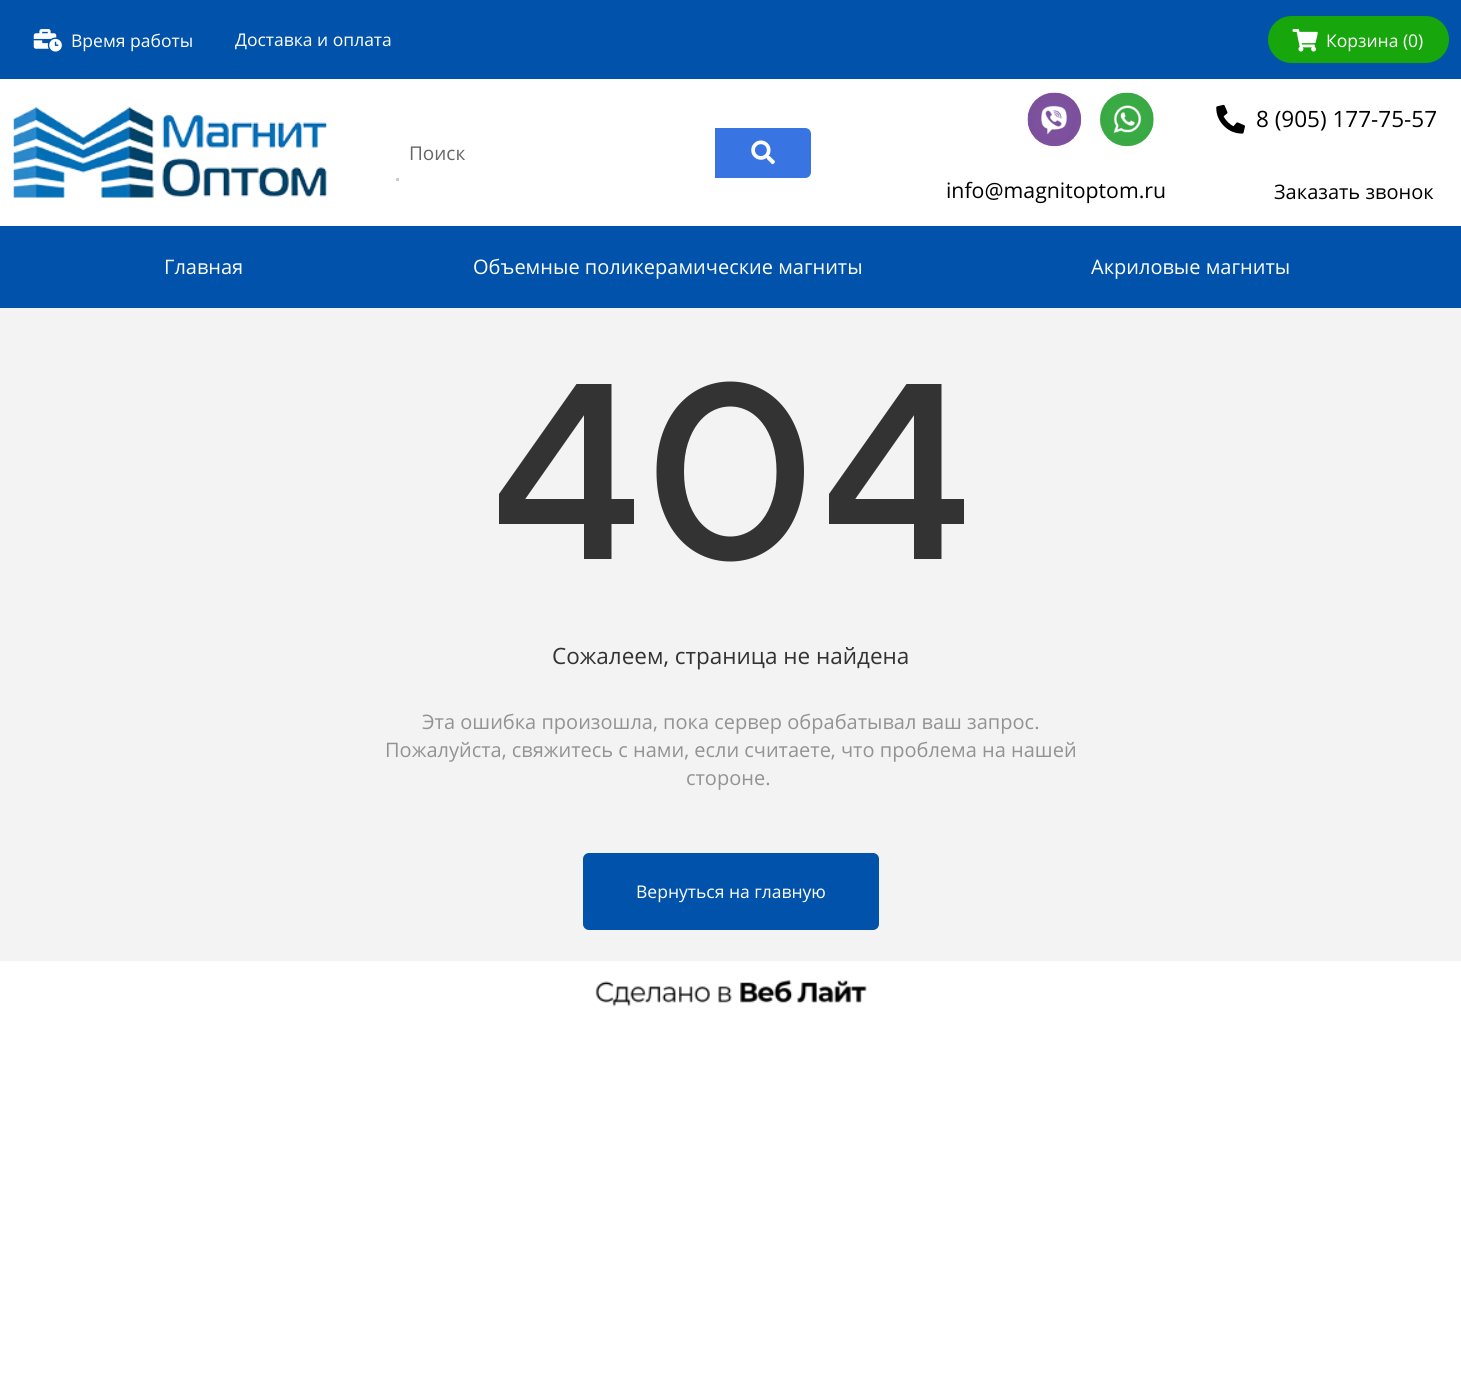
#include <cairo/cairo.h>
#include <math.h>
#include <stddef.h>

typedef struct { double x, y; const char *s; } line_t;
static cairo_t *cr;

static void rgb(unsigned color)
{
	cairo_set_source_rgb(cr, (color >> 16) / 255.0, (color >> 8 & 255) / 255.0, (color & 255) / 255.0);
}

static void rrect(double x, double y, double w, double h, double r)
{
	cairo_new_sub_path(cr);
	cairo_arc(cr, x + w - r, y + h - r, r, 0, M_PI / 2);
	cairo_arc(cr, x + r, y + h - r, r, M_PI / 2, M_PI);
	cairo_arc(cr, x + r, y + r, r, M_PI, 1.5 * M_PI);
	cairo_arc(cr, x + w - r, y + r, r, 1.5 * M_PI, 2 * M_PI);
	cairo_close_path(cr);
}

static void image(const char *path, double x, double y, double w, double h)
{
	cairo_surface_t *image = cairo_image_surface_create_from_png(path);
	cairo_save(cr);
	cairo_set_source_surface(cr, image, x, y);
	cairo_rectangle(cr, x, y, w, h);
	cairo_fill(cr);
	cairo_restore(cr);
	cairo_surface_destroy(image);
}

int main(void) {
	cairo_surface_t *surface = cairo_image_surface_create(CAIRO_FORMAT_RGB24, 1461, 1389);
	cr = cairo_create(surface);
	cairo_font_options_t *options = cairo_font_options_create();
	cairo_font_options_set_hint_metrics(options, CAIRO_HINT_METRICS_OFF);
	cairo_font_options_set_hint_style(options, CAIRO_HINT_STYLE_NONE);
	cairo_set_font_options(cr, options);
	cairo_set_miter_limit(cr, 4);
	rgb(0xffffff);
	cairo_paint(cr);
	rgb(0x0052aa);
	cairo_rectangle(cr, 0, 0, 1461, 79);
	cairo_fill(cr);
	image("img/1.png", 33, 29, 29, 23);
	rgb(0x17a60c);
	rrect(1268, 16, 181, 47, 23.5);
	cairo_fill(cr);
	image("img/2.png", 1292, 29, 26, 23);
	image("img/3.png", 13, 107, 314, 91);
	rgb(0x3875e2);
	cairo_new_path(cr);
	cairo_move_to(cr, 715, 128);
	cairo_line_to(cr, 805, 128);
	cairo_curve_to(cr, 808.5, 128, 811, 130.5, 811, 134);
	cairo_line_to(cr, 811, 172);
	cairo_curve_to(cr, 811, 175.5, 808.5, 178, 805, 178);
	cairo_line_to(cr, 715, 178);
	cairo_close_path(cr);
	cairo_fill(cr);
	image("img/4.png", 751, 140, 24, 25);
	rgb(0xcccccc);
	cairo_rectangle(cr, 396, 178, 3, 3);
	cairo_fill(cr);
	image("img/5.png", 1216, 104, 29, 30);
	image("img/6.png", 1027, 92, 55, 55);
	image("img/7.png", 1100, 92, 54, 55);
	rgb(0x0052aa);
	cairo_rectangle(cr, 0, 226, 1461, 82);
	cairo_fill(cr);
	rgb(0xf3f3f3);
	cairo_rectangle(cr, 0, 308, 1461, 653);
	cairo_fill(cr);
	rgb(0x0052aa);
	rrect(583, 853, 296, 77, 6);
	cairo_fill(cr);
	image("img/8.png", 595, 980, 272, 27);
	cairo_select_font_face(cr, "Open Sans", CAIRO_FONT_SLANT_NORMAL, CAIRO_FONT_WEIGHT_NORMAL);
	cairo_set_font_size(cr, 17.5);
	rgb(0xffffff);
	{
		static const line_t items[] = {
			{71, 47, "Время работы"},
			{235, 46, "Доставка и оплата"},
			{1326, 47, "Корзина (0)"},
		};
		for (size_t i = 0; i < sizeof items / sizeof *items; i++) {
			cairo_move_to(cr, items[i].x, items[i].y);
			cairo_show_text(cr, items[i].s);
		}
	}
	cairo_set_font_size(cr, 19);
	rgb(0x666666);
	cairo_move_to(cr, 409, 160);
	cairo_show_text(cr, "Поиск");
	cairo_set_font_size(cr, 22.5);
	rgb(0x000000);
	cairo_move_to(cr, 1256, 127);
	cairo_show_text(cr, "8 (905) 177-75-57");
	cairo_set_font_size(cr, 20);
	cairo_move_to(cr, 1274, 199);
	cairo_show_text(cr, "Заказать звонок");
	cairo_set_font_size(cr, 21.25);
	cairo_move_to(cr, 946, 198);
	cairo_show_text(cr, "info@magnitoptom.ru");
	cairo_set_font_size(cr, 20);
	rgb(0xffffff);
	{
		static const line_t items[] = {
			{164, 274, "Главная"},
			{473, 274, "Объемные поликерамические магниты"},
			{1091, 274, "Акриловые магниты"},
		};
		for (size_t i = 0; i < sizeof items / sizeof *items; i++) {
			cairo_move_to(cr, items[i].x, items[i].y);
			cairo_show_text(cr, items[i].s);
		}
	}
	cairo_select_font_face(cr, "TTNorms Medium", CAIRO_FONT_SLANT_NORMAL, CAIRO_FONT_WEIGHT_NORMAL);
	cairo_set_font_size(cr, 250);
	rgb(0x333333);
	cairo_move_to(cr, 489, 559);
	cairo_show_text(cr, "404");
	cairo_select_font_face(cr, "Open Sans", CAIRO_FONT_SLANT_NORMAL, CAIRO_FONT_WEIGHT_NORMAL);
	cairo_set_font_size(cr, 22.5);
	cairo_move_to(cr, 552, 664);
	cairo_show_text(cr, "Сожалеем, страница не найдена");
	cairo_set_font_size(cr, 20);
	rgb(0x939393);
	{
		static const line_t items[] = {
			{422, 729, "Эта ошибка произошла, пока сервер обрабатывал ваш запрос."},
			{385, 757, "Пожалуйста, свяжитесь с нами, если считаете, что проблема на нашей"},
			{686, 785, "стороне."},
		};
		for (size_t i = 0; i < sizeof items / sizeof *items; i++) {
			cairo_move_to(cr, items[i].x, items[i].y);
			cairo_show_text(cr, items[i].s);
		}
	}
	cairo_set_font_size(cr, 17.5);
	rgb(0xffffff);
	cairo_move_to(cr, 636, 898);
	cairo_show_text(cr, "Вернуться на главную");
	cairo_surface_write_to_png(surface, "page.png");
	cairo_font_options_destroy(options);
	cairo_destroy(cr);
	cairo_surface_destroy(surface);
	return 0;
}
